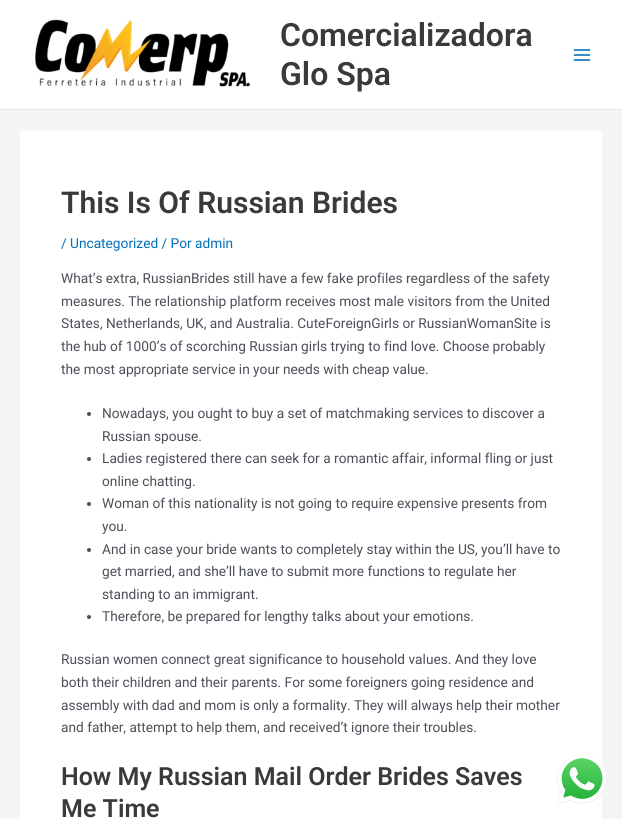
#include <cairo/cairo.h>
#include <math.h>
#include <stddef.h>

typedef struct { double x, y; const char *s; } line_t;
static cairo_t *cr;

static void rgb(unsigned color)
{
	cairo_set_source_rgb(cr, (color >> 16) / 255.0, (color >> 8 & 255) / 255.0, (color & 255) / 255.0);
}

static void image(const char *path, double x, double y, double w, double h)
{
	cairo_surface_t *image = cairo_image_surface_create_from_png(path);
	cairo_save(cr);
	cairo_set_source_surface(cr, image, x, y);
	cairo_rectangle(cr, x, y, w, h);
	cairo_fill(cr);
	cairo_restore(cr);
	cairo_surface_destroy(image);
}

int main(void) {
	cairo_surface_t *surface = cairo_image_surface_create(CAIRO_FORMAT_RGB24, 622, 819);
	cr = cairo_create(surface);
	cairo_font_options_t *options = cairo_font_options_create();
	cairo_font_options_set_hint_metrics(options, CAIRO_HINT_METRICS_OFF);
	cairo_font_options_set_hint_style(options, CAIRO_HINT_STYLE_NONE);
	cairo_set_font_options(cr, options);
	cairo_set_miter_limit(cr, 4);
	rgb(0xf5f5f5);
	cairo_paint(cr);
	rgb(0xffffff);
	cairo_rectangle(cr, 0, 0, 622, 109);
	cairo_fill(cr);
	rgb(0xe5e5e5);
	cairo_rectangle(cr, 0, 109, 622, 1);
	cairo_fill(cr);
	image("img/1.png", 35, 19, 216, 68);
	image("img/2.png", 573, 49, 18, 12);
	rgb(0xffffff);
	cairo_rectangle(cr, 20, 131, 582, 688);
	cairo_fill(cr);
	rgb(0x4b4f58);
	cairo_arc(cr, 89, 414, 2, 0, 2 * M_PI);
	cairo_fill(cr);
	cairo_arc(cr, 89, 459, 2, 0, 2 * M_PI);
	cairo_fill(cr);
	cairo_arc(cr, 89, 504, 2, 0, 2 * M_PI);
	cairo_fill(cr);
	cairo_arc(cr, 89, 550, 2, 0, 2 * M_PI);
	cairo_fill(cr);
	cairo_arc(cr, 89, 617, 2, 0, 2 * M_PI);
	cairo_fill(cr);
	image("img/3.png", 557, 754, 50, 50);
	cairo_select_font_face(cr, "Roboto SemiBold", CAIRO_FONT_SLANT_NORMAL, CAIRO_FONT_WEIGHT_NORMAL);
	cairo_set_font_size(cr, 32);
	rgb(0x3a3a3a);
	cairo_move_to(cr, 280, 46);
	cairo_show_text(cr, "Comercializadora");
	cairo_move_to(cr, 280, 85);
	cairo_show_text(cr, "Glo Spa");
	cairo_set_font_size(cr, 30);
	cairo_move_to(cr, 61, 213);
	cairo_show_text(cr, "This Is Of Russian Brides");
	cairo_select_font_face(cr, "Roboto", CAIRO_FONT_SLANT_NORMAL, CAIRO_FONT_WEIGHT_NORMAL);
	cairo_set_font_size(cr, 13.7);
	rgb(0x0170b9);
	cairo_move_to(cr, 61, 248);
	cairo_show_text(cr, "/ Uncategorized / Por admin");
	rgb(0x4b4f58);
	{
		static const line_t items[] = {
			{61, 283, "What’s extra, RussianBrides still have a few fake profiles regardless of the safety"},
			{61, 306, "measures. The relationship platform receives most male visitors from the United"},
			{61, 328, "States, Netherlands, UK, and Australia. CuteForeignGirls or RussianWomanSite is"},
			{61, 351, "the hub of 1000’s of scorching Russian girls trying to find love. Choose probably"},
			{61, 374, "the most appropriate service in your needs with cheap value."},
			{102, 418, "Nowadays, you ought to buy a set of matchmaking services to discover a"},
			{102, 441, "Russian spouse."},
			{102, 463, "Ladies registered there can seek for a romantic affair, informal fling or just"},
			{102, 486, "online chatting."},
			{102, 508, "Woman of this nationality is not going to require expensive presents from"},
			{102, 531, "you."},
			{102, 554, "And in case your bride wants to completely stay within the US, you’ll have to"},
			{102, 576, "get married, and she’ll have to submit more functions to regulate her"},
			{102, 599, "standing to an immigrant."},
			{102, 621, "Therefore, be prepared for lengthy talks about your emotions."},
			{61, 664, "Russian women connect great significance to household values. And they love"},
			{61, 687, "both their children and their parents. For some foreigners going residence and"},
			{61, 710, "assembly with dad and mom is only a formality. They will always help their mother"},
			{61, 732, "and father, attempt to help them, and received’t ignore their troubles."},
		};
		for (size_t i = 0; i < sizeof items / sizeof *items; i++) {
			cairo_move_to(cr, items[i].x, items[i].y);
			cairo_show_text(cr, items[i].s);
		}
	}
	cairo_select_font_face(cr, "Roboto SemiBold", CAIRO_FONT_SLANT_NORMAL, CAIRO_FONT_WEIGHT_NORMAL);
	cairo_set_font_size(cr, 25);
	rgb(0x3a3a3a);
	cairo_move_to(cr, 61, 785);
	cairo_show_text(cr, "How My Russian Mail Order Brides Saves");
	cairo_move_to(cr, 61, 817);
	cairo_show_text(cr, "Me Time");
	cairo_surface_write_to_png(surface, "page.png");
	cairo_font_options_destroy(options);
	cairo_destroy(cr);
	cairo_surface_destroy(surface);
	return 0;
}
